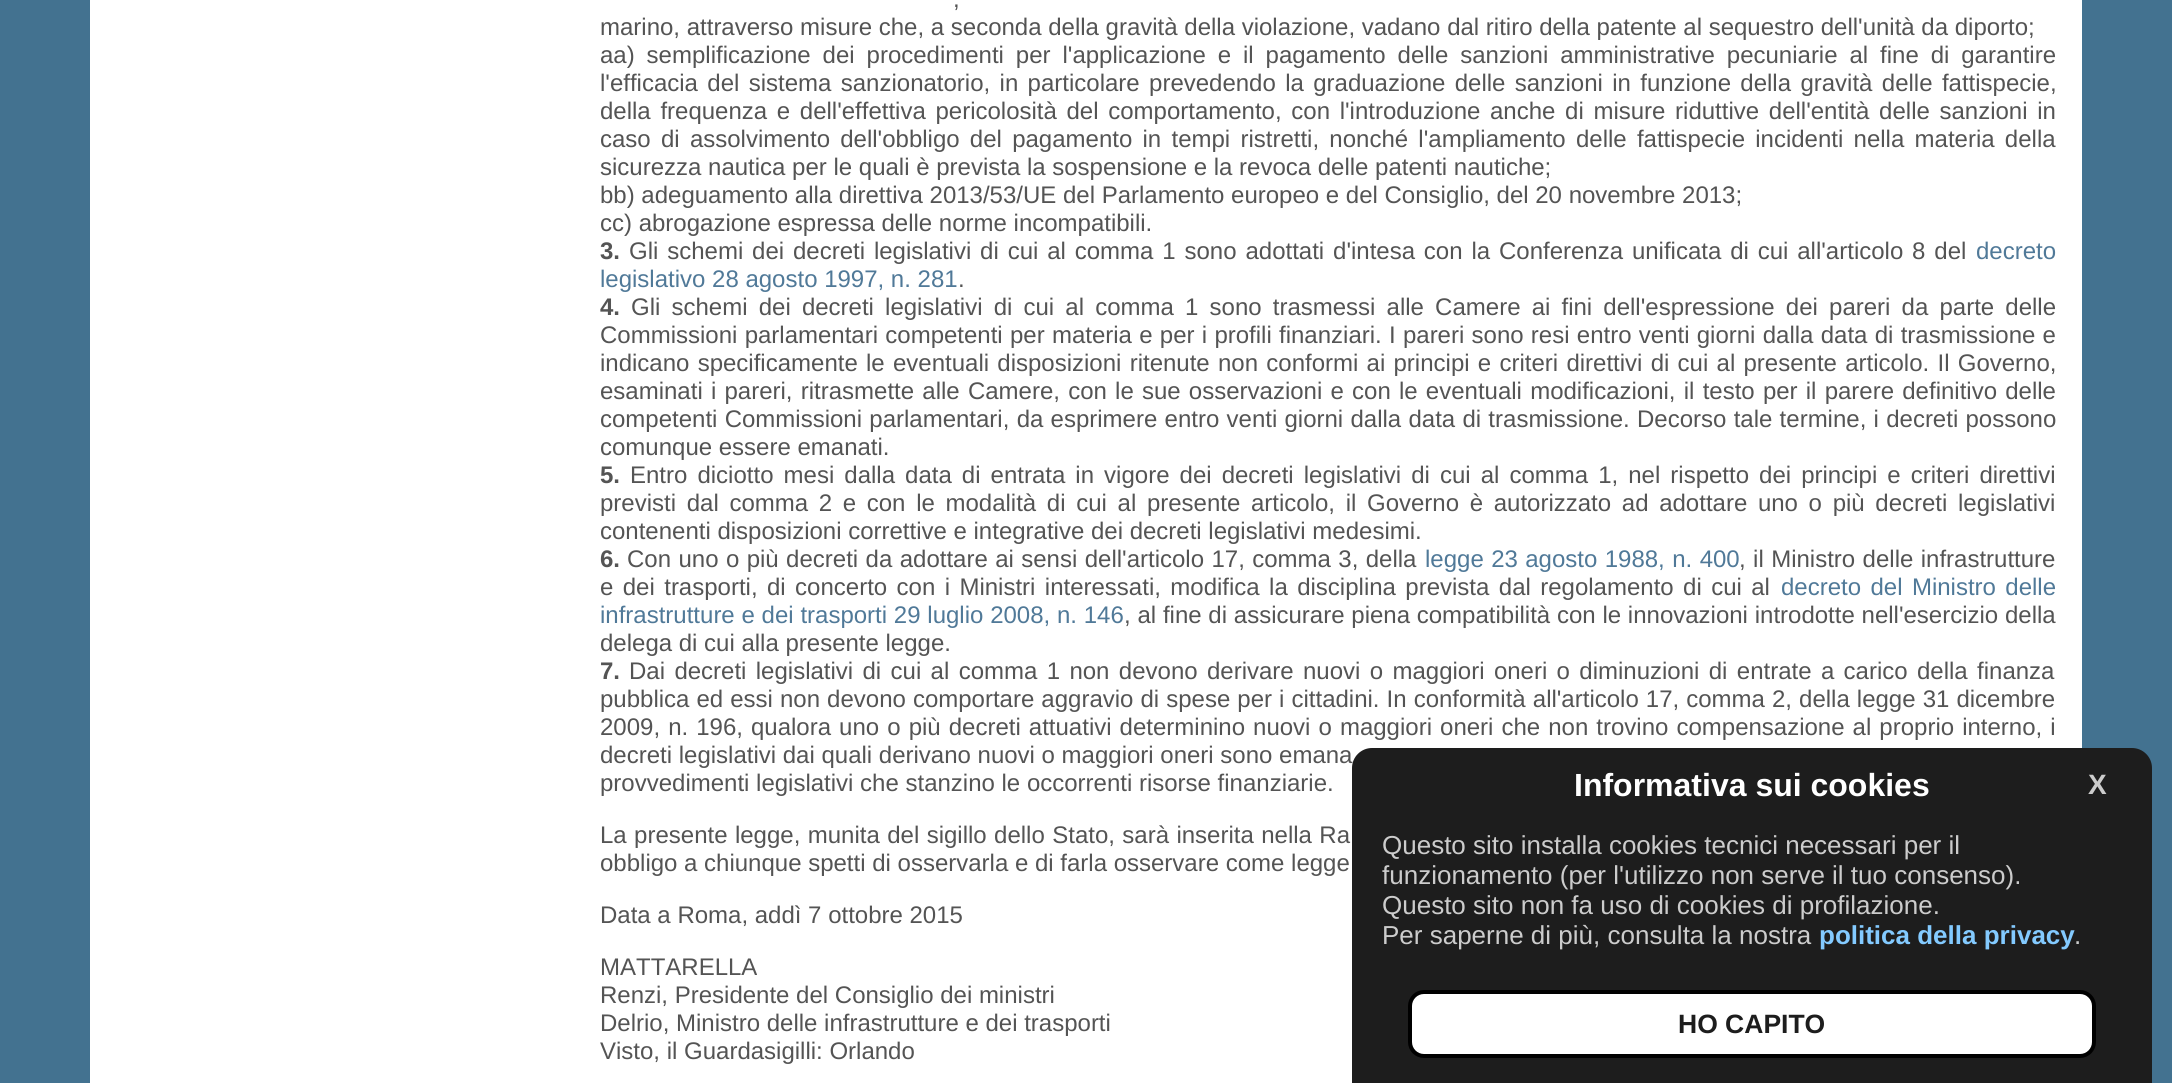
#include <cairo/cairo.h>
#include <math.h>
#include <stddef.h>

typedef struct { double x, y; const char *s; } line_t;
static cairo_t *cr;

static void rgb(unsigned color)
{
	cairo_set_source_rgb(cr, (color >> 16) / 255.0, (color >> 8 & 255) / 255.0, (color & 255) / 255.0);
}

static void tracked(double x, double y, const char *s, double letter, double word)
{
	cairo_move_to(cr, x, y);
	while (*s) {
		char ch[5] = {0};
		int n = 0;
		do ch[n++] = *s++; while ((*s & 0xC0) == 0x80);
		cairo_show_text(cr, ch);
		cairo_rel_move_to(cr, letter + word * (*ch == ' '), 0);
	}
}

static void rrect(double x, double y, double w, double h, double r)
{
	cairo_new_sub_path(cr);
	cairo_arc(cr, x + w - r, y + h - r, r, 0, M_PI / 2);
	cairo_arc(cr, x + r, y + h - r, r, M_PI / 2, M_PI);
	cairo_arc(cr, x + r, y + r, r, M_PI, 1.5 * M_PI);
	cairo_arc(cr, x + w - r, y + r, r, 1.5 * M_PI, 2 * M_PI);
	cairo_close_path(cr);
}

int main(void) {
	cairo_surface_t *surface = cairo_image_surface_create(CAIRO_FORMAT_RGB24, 2172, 1083);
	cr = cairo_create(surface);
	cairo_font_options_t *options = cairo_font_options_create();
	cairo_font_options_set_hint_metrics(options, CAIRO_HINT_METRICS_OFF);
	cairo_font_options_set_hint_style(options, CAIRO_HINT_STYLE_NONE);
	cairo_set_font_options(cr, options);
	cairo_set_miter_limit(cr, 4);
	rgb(0x437290);
	cairo_paint(cr);
	rgb(0xffffff);
	cairo_rectangle(cr, 90, 0, 1992, 1083);
	cairo_fill(cr);
	cairo_select_font_face(cr, "Liberation Sans", CAIRO_FONT_SLANT_NORMAL, CAIRO_FONT_WEIGHT_NORMAL);
	cairo_set_font_size(cr, 24);
	rgb(0x545454);
	cairo_move_to(cr, 953, 7);
	cairo_show_text(cr, ",");
	cairo_move_to(cr, 600, 35);
	cairo_show_text(cr, "marino, attraverso misure che, a seconda della gravità della violazione, vadano dal ritiro della patente al sequestro dell'unità da diporto;");
	tracked(600, 63, "aa) semplificazione dei procedimenti per l'applicazione e il pagamento delle sanzioni amministrative pecuniarie al fine di garantire", 0, 5.25);
	tracked(600, 91, "l'efficacia del sistema sanzionatorio, in particolare prevedendo la graduazione delle sanzioni in funzione della gravità delle fattispecie,", 0, 2.7);
	tracked(600, 119, "della frequenza e dell'effettiva pericolosità del comportamento, con l'introduzione anche di misure riduttive dell'entità delle sanzioni in", 0, 3);
	tracked(600, 147, "caso di assolvimento dell'obbligo del pagamento in tempi ristretti, nonché l'ampliamento delle fattispecie incidenti nella materia della", 0, 3.6);
	{
		static const line_t items[] = {
			{600, 175, "sicurezza nautica per le quali è prevista la sospensione e la revoca delle patenti nautiche;"},
			{600, 203, "bb) adeguamento alla direttiva 2013/53/UE del Parlamento europeo e del Consiglio, del 20 novembre 2013;"},
			{600, 231, "cc) abrogazione espressa delle norme incompatibili."},
		};
		for (size_t i = 0; i < sizeof items / sizeof *items; i++) {
			cairo_move_to(cr, items[i].x, items[i].y);
			cairo_show_text(cr, items[i].s);
		}
	}
	cairo_select_font_face(cr, "Liberation Sans", CAIRO_FONT_SLANT_NORMAL, CAIRO_FONT_WEIGHT_BOLD);
	cairo_move_to(cr, 600, 259);
	cairo_show_text(cr, "3.");
	cairo_select_font_face(cr, "Liberation Sans", CAIRO_FONT_SLANT_NORMAL, CAIRO_FONT_WEIGHT_NORMAL);
	tracked(629, 259, "Gli schemi dei decreti legislativi di cui al comma 1 sono adottati d'intesa con la Conferenza unificata di cui all'articolo 8 del", 0, 2.2);
	rgb(0x507998);
	cairo_move_to(cr, 1976, 259);
	cairo_show_text(cr, "decreto");
	cairo_move_to(cr, 600, 287);
	cairo_show_text(cr, "legislativo 28 agosto 1997, n. 281");
	rgb(0x545454);
	cairo_move_to(cr, 958, 287);
	cairo_show_text(cr, ".");
	cairo_select_font_face(cr, "Liberation Sans", CAIRO_FONT_SLANT_NORMAL, CAIRO_FONT_WEIGHT_BOLD);
	cairo_move_to(cr, 600, 315);
	cairo_show_text(cr, "4.");
	cairo_select_font_face(cr, "Liberation Sans", CAIRO_FONT_SLANT_NORMAL, CAIRO_FONT_WEIGHT_NORMAL);
	tracked(631, 315, "Gli schemi dei decreti legislativi di cui al comma 1 sono trasmessi alle Camere ai fini dell'espressione dei pareri da parte delle", 0, 4.5);
	tracked(600, 343, "Commissioni parlamentari competenti per materia e per i profili finanziari. I pareri sono resi entro venti giorni dalla data di trasmissione e", 0, 0.6);
	tracked(600, 371, "indicano specificamente le eventuali disposizioni ritenute non conformi ai principi e criteri direttivi di cui al presente articolo. Il Governo,", 0, 1.6);
	tracked(600, 399, "esaminati i pareri, ritrasmette alle Camere, con le sue osservazioni e con le eventuali modificazioni, il testo per il parere definitivo delle", 0, 1.55);
	tracked(600, 427, "competenti Commissioni parlamentari, da esprimere entro venti giorni dalla data di trasmissione. Decorso tale termine, i decreti possono", 0, 0.6);
	cairo_move_to(cr, 600, 455);
	cairo_show_text(cr, "comunque essere emanati.");
	cairo_select_font_face(cr, "Liberation Sans", CAIRO_FONT_SLANT_NORMAL, CAIRO_FONT_WEIGHT_BOLD);
	cairo_move_to(cr, 600, 483);
	cairo_show_text(cr, "5.");
	cairo_select_font_face(cr, "Liberation Sans", CAIRO_FONT_SLANT_NORMAL, CAIRO_FONT_WEIGHT_NORMAL);
	tracked(630, 483, "Entro diciotto mesi dalla data di entrata in vigore dei decreti legislativi di cui al comma 1, nel rispetto dei principi e criteri direttivi", 0, 3.4);
	tracked(600, 511, "previsti dal comma 2 e con le modalità di cui al presente articolo, il Governo è autorizzato ad adottare uno o più decreti legislativi", 0, 4);
	cairo_move_to(cr, 600, 539);
	cairo_show_text(cr, "contenenti disposizioni correttive e integrative dei decreti legislativi medesimi.");
	cairo_select_font_face(cr, "Liberation Sans", CAIRO_FONT_SLANT_NORMAL, CAIRO_FONT_WEIGHT_BOLD);
	cairo_move_to(cr, 600, 567);
	cairo_show_text(cr, "6.");
	cairo_select_font_face(cr, "Liberation Sans", CAIRO_FONT_SLANT_NORMAL, CAIRO_FONT_WEIGHT_NORMAL);
	tracked(627, 567, "Con uno o più decreti da adottare ai sensi dell'articolo 17, comma 3, della", 0, 0.75);
	rgb(0x507998);
	tracked(1425, 567, "legge 23 agosto 1988, n. 400", 0, 0.75);
	rgb(0x545454);
	tracked(1739, 567, ", il Ministro delle infrastrutture", 0, 0.75);
	tracked(600, 595, "e dei trasporti, di concerto con i Ministri interessati, modifica la disciplina prevista dal regolamento di cui al", 0, 2.75);
	rgb(0x507998);
	tracked(1781, 595, "decreto del Ministro delle", 0, 2.75);
	tracked(600, 623, "infrastrutture e dei trasporti 29 luglio 2008, n. 146", 0, 0.1);
	rgb(0x545454);
	tracked(1124, 623, ", al fine di assicurare piena compatibilità con le innovazioni introdotte nell'esercizio della", 0, 0.1);
	cairo_move_to(cr, 600, 651);
	cairo_show_text(cr, "delega di cui alla presente legge.");
	cairo_select_font_face(cr, "Liberation Sans", CAIRO_FONT_SLANT_NORMAL, CAIRO_FONT_WEIGHT_BOLD);
	cairo_move_to(cr, 600, 679);
	cairo_show_text(cr, "7.");
	cairo_select_font_face(cr, "Liberation Sans", CAIRO_FONT_SLANT_NORMAL, CAIRO_FONT_WEIGHT_NORMAL);
	tracked(629, 679, "Dai decreti legislativi di cui al comma 1 non devono derivare nuovi o maggiori oneri o diminuzioni di entrate a carico della finanza", 0, 2.7);
	tracked(600, 707, "pubblica ed essi non devono comportare aggravio di spese per i cittadini. In conformità all'articolo 17, comma 2, della legge 31 dicembre", 0, 0.4);
	tracked(600, 735, "2009, n. 196, qualora uno o più decreti attuativi determinino nuovi o maggiori oneri che non trovino compensazione al proprio interno, i", 0, 1.4);
	cairo_move_to(cr, 600, 763);
	cairo_show_text(cr, "decreti legislativi dai quali derivano nuovi o maggiori oneri sono emana");
	cairo_move_to(cr, 600, 791);
	cairo_show_text(cr, "provvedimenti legislativi che stanzino le occorrenti risorse finanziarie.");
	tracked(600, 843, "La presente legge, munita del sigillo dello Stato, sarà inserita nella Ra", 0, 0.75);
	{
		static const line_t items[] = {
			{600, 871, "obbligo a chiunque spetti di osservarla e di farla osservare come legge"},
			{600, 923, "Data a Roma, addì 7 ottobre 2015"},
			{600, 975, "MATTARELLA"},
			{600, 1003, "Renzi, Presidente del Consiglio dei ministri"},
			{600, 1031, "Delrio, Ministro delle infrastrutture e dei trasporti"},
			{600, 1059, "Visto, il Guardasigilli: Orlando"},
		};
		for (size_t i = 0; i < sizeof items / sizeof *items; i++) {
			cairo_move_to(cr, items[i].x, items[i].y);
			cairo_show_text(cr, items[i].s);
		}
	}
	rgb(0x1d1d1d);
	cairo_new_path(cr);
	cairo_move_to(cr, 1372, 748);
	cairo_line_to(cr, 2132, 748);
	cairo_curve_to(cr, 2143, 748, 2152, 757, 2152, 768);
	cairo_line_to(cr, 2152, 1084);
	cairo_line_to(cr, 1352, 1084);
	cairo_line_to(cr, 1352, 768);
	cairo_curve_to(cr, 1352, 757, 1361, 748, 1372, 748);
	cairo_close_path(cr);
	cairo_fill(cr);
	cairo_select_font_face(cr, "Liberation Sans", CAIRO_FONT_SLANT_NORMAL, CAIRO_FONT_WEIGHT_BOLD);
	cairo_set_font_size(cr, 32);
	rgb(0xffffff);
	cairo_move_to(cr, 1574, 796);
	cairo_show_text(cr, "Informativa sui cookies");
	cairo_set_font_size(cr, 28);
	rgb(0xcccccc);
	cairo_move_to(cr, 2088, 794);
	cairo_show_text(cr, "X");
	cairo_select_font_face(cr, "Liberation Sans", CAIRO_FONT_SLANT_NORMAL, CAIRO_FONT_WEIGHT_NORMAL);
	cairo_set_font_size(cr, 26);
	{
		static const line_t items[] = {
			{1382, 854, "Questo sito installa cookies tecnici necessari per il"},
			{1382, 884, "funzionamento (per l'utilizzo non serve il tuo consenso)."},
			{1382, 914, "Questo sito non fa uso di cookies di profilazione."},
			{1382, 944, "Per saperne di più, consulta la nostra"},
		};
		for (size_t i = 0; i < sizeof items / sizeof *items; i++) {
			cairo_move_to(cr, items[i].x, items[i].y);
			cairo_show_text(cr, items[i].s);
		}
	}
	cairo_select_font_face(cr, "Liberation Sans", CAIRO_FONT_SLANT_NORMAL, CAIRO_FONT_WEIGHT_BOLD);
	rgb(0x83caff);
	cairo_move_to(cr, 1819, 944);
	cairo_show_text(cr, "politica della privacy");
	cairo_select_font_face(cr, "Liberation Sans", CAIRO_FONT_SLANT_NORMAL, CAIRO_FONT_WEIGHT_NORMAL);
	rgb(0xcccccc);
	cairo_move_to(cr, 2074, 944);
	cairo_show_text(cr, ".");
	rgb(0xffffff);
	rrect(1410, 992, 684, 64, 14);
	cairo_fill_preserve(cr);
	rgb(0x000000);
	cairo_set_line_width(cr, 4);
	cairo_stroke(cr);
	cairo_select_font_face(cr, "Liberation Sans", CAIRO_FONT_SLANT_NORMAL, CAIRO_FONT_WEIGHT_BOLD);
	cairo_set_font_size(cr, 26.5);
	rgb(0x1d1d1d);
	cairo_move_to(cr, 1678, 1033);
	cairo_show_text(cr, "HO CAPITO");
	cairo_surface_write_to_png(surface, "page.png");
	cairo_font_options_destroy(options);
	cairo_destroy(cr);
	cairo_surface_destroy(surface);
	return 0;
}
